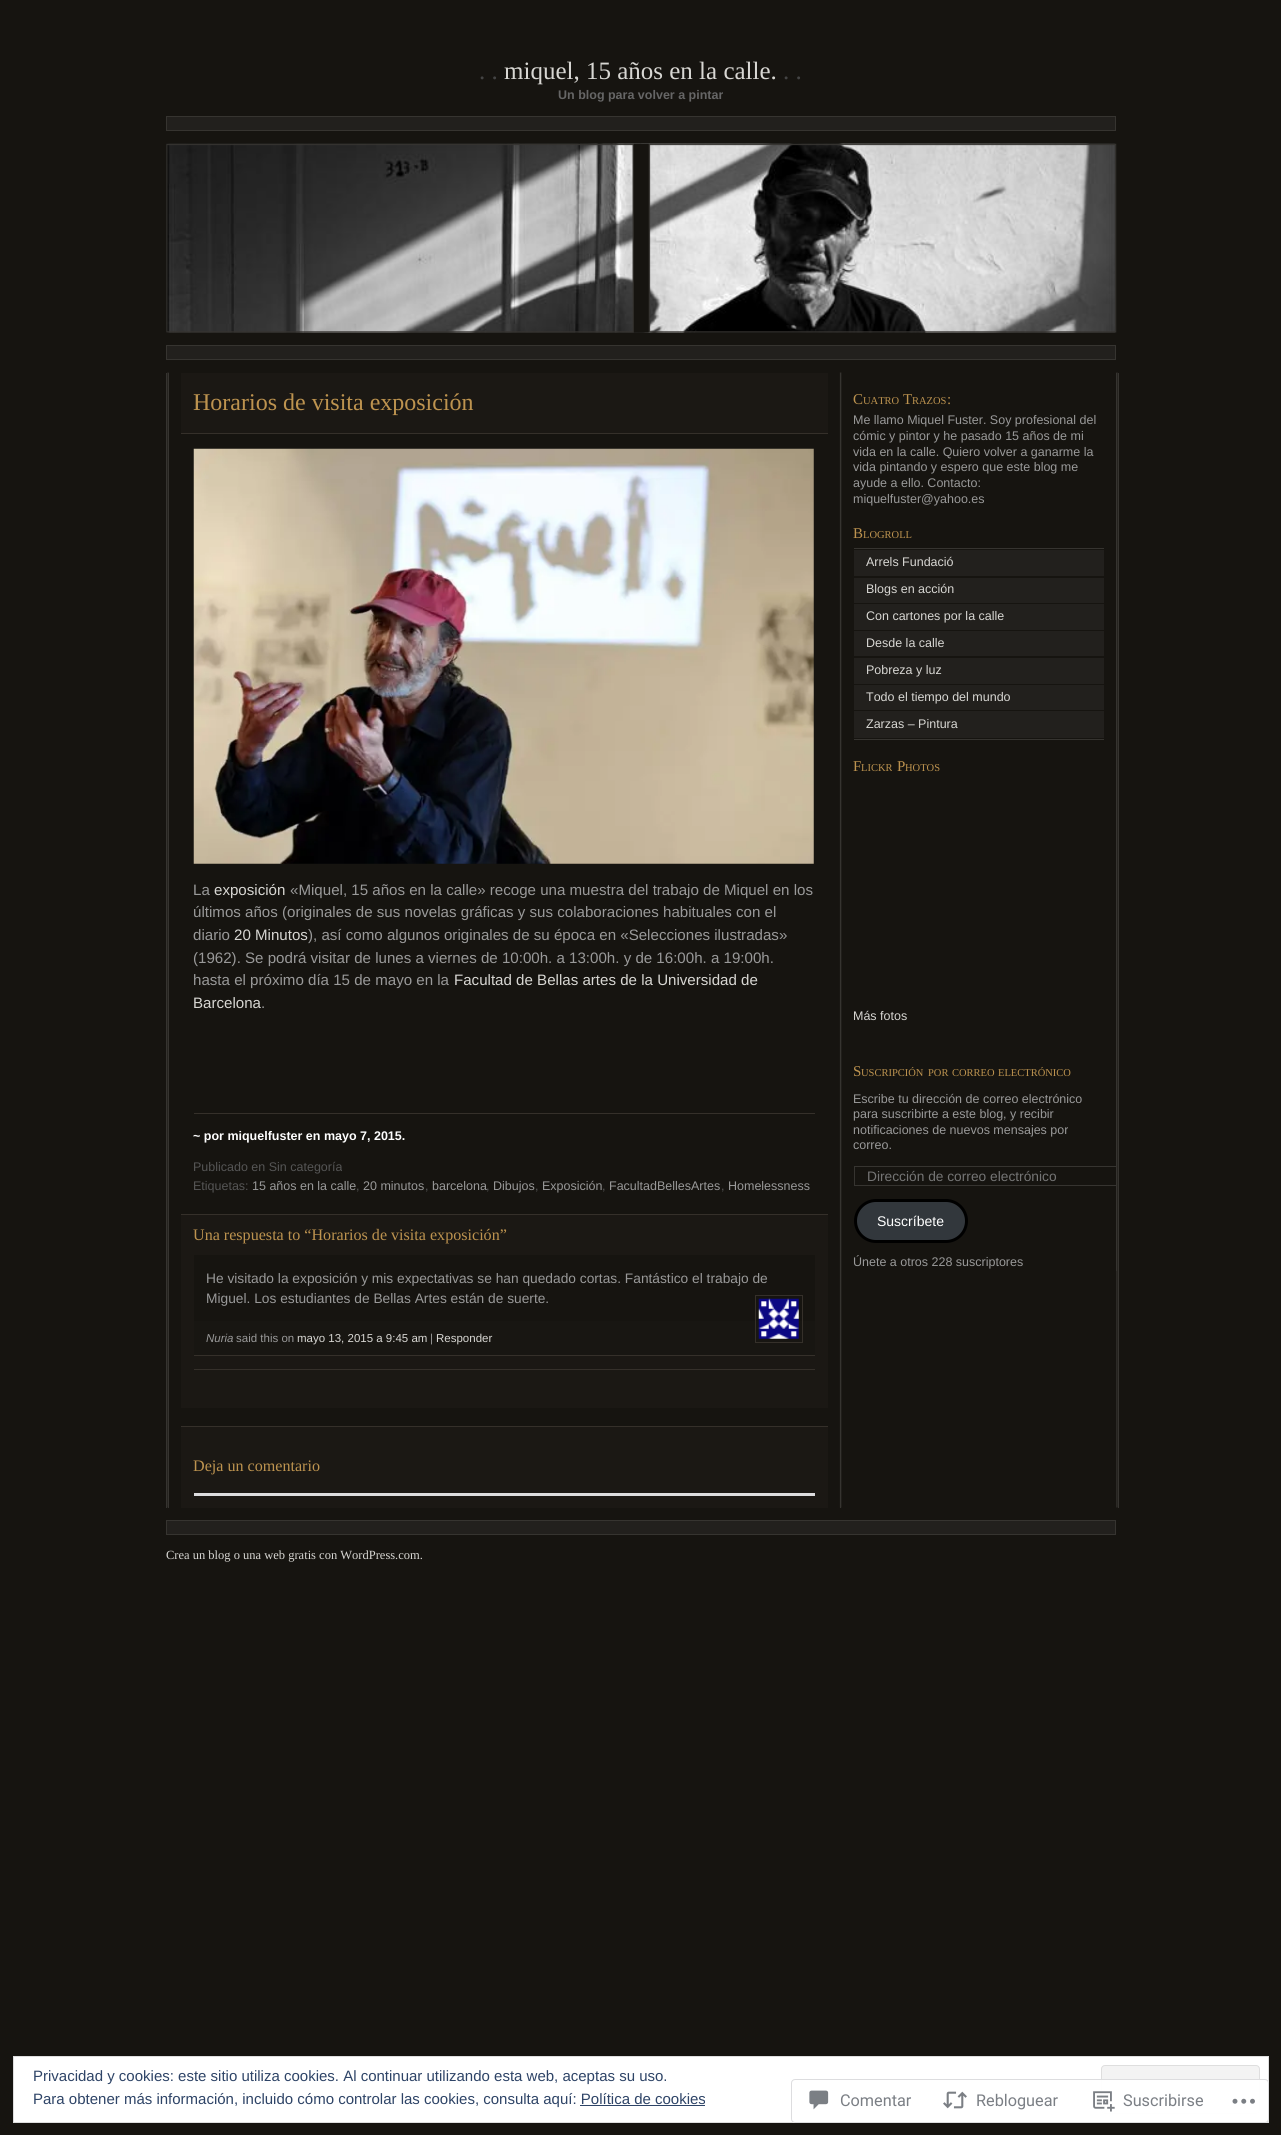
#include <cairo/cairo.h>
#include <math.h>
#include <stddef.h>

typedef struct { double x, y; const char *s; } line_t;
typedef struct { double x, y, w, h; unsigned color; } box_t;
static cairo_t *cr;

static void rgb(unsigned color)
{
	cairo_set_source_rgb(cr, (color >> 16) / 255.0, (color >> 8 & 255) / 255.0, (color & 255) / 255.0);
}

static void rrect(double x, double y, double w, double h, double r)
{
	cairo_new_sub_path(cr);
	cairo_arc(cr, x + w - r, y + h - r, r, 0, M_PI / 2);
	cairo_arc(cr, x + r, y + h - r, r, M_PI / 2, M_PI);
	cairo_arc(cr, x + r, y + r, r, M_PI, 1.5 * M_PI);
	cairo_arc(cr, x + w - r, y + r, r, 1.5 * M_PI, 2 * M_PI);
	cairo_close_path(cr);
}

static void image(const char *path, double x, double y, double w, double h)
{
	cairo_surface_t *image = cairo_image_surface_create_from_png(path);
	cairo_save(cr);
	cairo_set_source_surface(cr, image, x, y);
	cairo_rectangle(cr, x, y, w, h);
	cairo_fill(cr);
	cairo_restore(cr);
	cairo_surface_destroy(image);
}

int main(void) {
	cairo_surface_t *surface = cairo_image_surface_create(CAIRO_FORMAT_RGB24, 1281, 2135);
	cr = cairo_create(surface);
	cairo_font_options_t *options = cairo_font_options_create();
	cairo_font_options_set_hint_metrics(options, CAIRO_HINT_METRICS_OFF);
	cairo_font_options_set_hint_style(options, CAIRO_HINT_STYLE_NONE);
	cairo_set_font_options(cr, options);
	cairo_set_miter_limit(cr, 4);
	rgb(0x161410);
	cairo_paint(cr);
	rgb(0x22201d);
	cairo_rectangle(cr, 166.5, 116.5, 949, 14);
	cairo_fill_preserve(cr);
	rgb(0x363430);
	cairo_set_line_width(cr, 1);
	cairo_stroke(cr);
	image("img/1.png", 166, 143, 950, 190);
	image("img/2.png", 166, 143, 951, 190);
	rgb(0x22201d);
	cairo_rectangle(cr, 166.5, 345.5, 949, 14);
	cairo_fill_preserve(cr);
	rgb(0x363430);
	cairo_stroke(cr);
	image("img/3.png", 167, 372, 951, 1136);
	{
		static const box_t items[] = {
			{1118, 373, 1, 1135, 0x363430},
			{166, 373, 1, 1135, 0x363430},
			{840, 373, 1, 1135, 0x363430},
			{168, 373, 1, 1135, 0x363430},
			{181, 373, 647, 60, 0x1b1814},
			{181, 433, 647, 1, 0x35302a},
		};
		for (size_t i = 0; i < sizeof items / sizeof *items; i++) {
			rgb(items[i].color);
			cairo_rectangle(cr, items[i].x, items[i].y, items[i].w, items[i].h);
			cairo_fill(cr);
		}
	}
	image("img/4.png", 193, 448, 621, 416);
	{
		static const box_t items[] = {
			{194, 1113, 621, 1, 0x35302a},
			{181, 1215, 647, 193, 0x1b1814},
			{181, 1214, 647, 1, 0x35302a},
			{194, 1255, 621, 66, 0x161410},
			{194, 1321, 621, 34, 0x181612},
			{194, 1355, 621, 1, 0x35302a},
		};
		for (size_t i = 0; i < sizeof items / sizeof *items; i++) {
			rgb(items[i].color);
			cairo_rectangle(cr, items[i].x, items[i].y, items[i].w, items[i].h);
			cairo_fill(cr);
		}
	}
	cairo_rectangle(cr, 755.5, 1295.5, 47, 47);
	cairo_stroke(cr);
	image("img/5.png", 758, 1298, 41, 41);
	{
		static const box_t items[] = {
			{194, 1369, 621, 1, 0x35302a},
			{181, 1427, 647, 81, 0x1b1814},
			{181, 1426, 647, 1, 0x35302a},
			{194, 1493, 621, 3, 0xdcdcde},
			{1116, 373, 1, 898, 0x363430},
			{854, 548, 250, 1, 0x363430},
			{854, 739, 250, 1, 0x363430},
			{854, 550, 250, 26, 0x22201d},
			{854, 578, 250, 25, 0x22201d},
			{854, 604, 250, 26, 0x22201d},
			{854, 631, 250, 25, 0x22201d},
			{854, 658, 250, 26, 0x22201d},
			{854, 685, 250, 25, 0x22201d},
			{854, 711, 250, 27, 0x22201d},
		};
		for (size_t i = 0; i < sizeof items / sizeof *items; i++) {
			rgb(items[i].color);
			cairo_rectangle(cr, items[i].x, items[i].y, items[i].w, items[i].h);
			cairo_fill(cr);
		}
	}
	cairo_save(cr);
	cairo_rectangle(cr, 841, 373, 275, 898);
	cairo_clip(cr);
	cairo_rectangle(cr, 854.5, 1166.5, 264, 19);
	rgb(0x363430);
	cairo_stroke(cr);
	cairo_restore(cr);
	rgb(0x32373c);
	rrect(855.5, 1200.5, 111, 41, 20.5);
	cairo_fill_preserve(cr);
	rgb(0x000000);
	cairo_set_line_width(cr, 3);
	cairo_stroke(cr);
	rgb(0x22201d);
	cairo_rectangle(cr, 166.5, 1520.5, 949, 14);
	cairo_fill_preserve(cr);
	rgb(0x363430);
	cairo_set_line_width(cr, 1);
	cairo_stroke(cr);
	rgb(0xffffff);
	cairo_rectangle(cr, 13.5, 2056.5, 1255, 66);
	cairo_fill_preserve(cr);
	rgb(0xdedede);
	cairo_stroke(cr);
	rgb(0xf3f3f3);
	rrect(1101.5, 2065.5, 158, 48, 3.5);
	cairo_fill_preserve(cr);
	rgb(0xdedede);
	cairo_stroke(cr);
	rgb(0x2e4467);
	cairo_rectangle(cr, 580, 2105, 125, 1);
	cairo_fill(cr);
	cairo_set_source_rgba(cr, 1, 1, 1, 0.98);
	rrect(791, 2079, 478, 44, 4);
	cairo_fill(cr);
	rrect(791.5, 2079.5, 477, 43, 3.5);
	cairo_set_source_rgba(cr, 0.863, 0.863, 0.871, 0.98);
	cairo_stroke(cr);
	image("img/6.png", 809, 2090, 20, 20);
	image("img/7.png", 943, 2091, 24, 18);
	image("img/8.png", 1093, 2091, 22, 21);
	image("img/9.png", 1232, 2098, 23, 6);
	cairo_select_font_face(cr, "Liberation Serif", CAIRO_FONT_SLANT_NORMAL, CAIRO_FONT_WEIGHT_NORMAL);
	cairo_set_font_size(cr, 25);
	rgb(0x444444);
	cairo_move_to(cr, 479, 79);
	cairo_show_text(cr, ". .");
	rgb(0xd8d7d3);
	cairo_move_to(cr, 504, 79);
	cairo_show_text(cr, "miquel, 15 años en la calle.");
	rgb(0x444444);
	cairo_move_to(cr, 783, 79);
	cairo_show_text(cr, ". .");
	cairo_select_font_face(cr, "Liberation Sans", CAIRO_FONT_SLANT_NORMAL, CAIRO_FONT_WEIGHT_BOLD);
	cairo_set_font_size(cr, 12.5);
	rgb(0x666666);
	cairo_move_to(cr, 558, 99);
	cairo_show_text(cr, "Un blog para volver a pintar");
	cairo_select_font_face(cr, "Liberation Serif", CAIRO_FONT_SLANT_NORMAL, CAIRO_FONT_WEIGHT_NORMAL);
	cairo_set_font_size(cr, 24);
	rgb(0xbd934f);
	cairo_move_to(cr, 193, 410);
	cairo_show_text(cr, "Horarios de visita exposición");
	cairo_select_font_face(cr, "Liberation Sans", CAIRO_FONT_SLANT_NORMAL, CAIRO_FONT_WEIGHT_NORMAL);
	cairo_set_font_size(cr, 15.1);
	rgb(0x999999);
	cairo_move_to(cr, 193, 895);
	cairo_show_text(cr, "La");
	rgb(0xd8d7d3);
	cairo_move_to(cr, 214, 895);
	cairo_show_text(cr, "exposición");
	rgb(0x999999);
	{
		static const line_t items[] = {
			{290, 895, "«Miquel, 15 años en la calle» recoge una muestra del trabajo de Miquel en los"},
			{193, 917, "últimos años (originales de sus novelas gráficas y sus colaboraciones habituales con el"},
			{193, 940, "diario"},
		};
		for (size_t i = 0; i < sizeof items / sizeof *items; i++) {
			cairo_move_to(cr, items[i].x, items[i].y);
			cairo_show_text(cr, items[i].s);
		}
	}
	rgb(0xd8d7d3);
	cairo_move_to(cr, 234, 940);
	cairo_show_text(cr, "20 Minutos");
	rgb(0x999999);
	{
		static const line_t items[] = {
			{308, 940, "), así como algunos originales de su época en «Selecciones ilustradas»"},
			{193, 963, "(1962). Se podrá visitar de lunes a viernes de 10:00h. a 13:00h. y de 16:00h. a 19:00h."},
			{193, 985, "hasta el próximo día 15 de mayo en la"},
		};
		for (size_t i = 0; i < sizeof items / sizeof *items; i++) {
			cairo_move_to(cr, items[i].x, items[i].y);
			cairo_show_text(cr, items[i].s);
		}
	}
	rgb(0xd8d7d3);
	cairo_move_to(cr, 454, 985);
	cairo_show_text(cr, "Facultad de Bellas artes de la Universidad de");
	cairo_move_to(cr, 193, 1008);
	cairo_show_text(cr, "Barcelona");
	rgb(0x999999);
	cairo_move_to(cr, 261, 1008);
	cairo_show_text(cr, ".");
	cairo_select_font_face(cr, "Liberation Sans", CAIRO_FONT_SLANT_NORMAL, CAIRO_FONT_WEIGHT_BOLD);
	cairo_set_font_size(cr, 12.5);
	rgb(0xffffff);
	cairo_move_to(cr, 193, 1140);
	cairo_show_text(cr, "~ por miquelfuster en mayo 7, 2015.");
	cairo_select_font_face(cr, "Liberation Sans", CAIRO_FONT_SLANT_NORMAL, CAIRO_FONT_WEIGHT_NORMAL);
	rgb(0x555555);
	cairo_move_to(cr, 193, 1171);
	cairo_show_text(cr, "Publicado en Sin categoría");
	cairo_move_to(cr, 193, 1190);
	cairo_show_text(cr, "Etiquetas:");
	rgb(0x999999);
	cairo_move_to(cr, 252, 1190);
	cairo_show_text(cr, "15 años en la calle");
	rgb(0x555555);
	cairo_move_to(cr, 356, 1190);
	cairo_show_text(cr, ",");
	rgb(0x999999);
	cairo_move_to(cr, 363, 1190);
	cairo_show_text(cr, "20 minutos");
	rgb(0x555555);
	cairo_move_to(cr, 425, 1190);
	cairo_show_text(cr, ",");
	rgb(0x999999);
	cairo_move_to(cr, 432, 1190);
	cairo_show_text(cr, "barcelona");
	rgb(0x555555);
	cairo_move_to(cr, 486, 1190);
	cairo_show_text(cr, ",");
	rgb(0x999999);
	cairo_move_to(cr, 493, 1190);
	cairo_show_text(cr, "Dibujos");
	rgb(0x555555);
	cairo_move_to(cr, 535, 1190);
	cairo_show_text(cr, ",");
	rgb(0x999999);
	cairo_move_to(cr, 542, 1190);
	cairo_show_text(cr, "Exposición");
	rgb(0x555555);
	cairo_move_to(cr, 602, 1190);
	cairo_show_text(cr, ",");
	rgb(0x999999);
	cairo_move_to(cr, 609, 1190);
	cairo_show_text(cr, "FacultadBellesArtes");
	rgb(0x555555);
	cairo_move_to(cr, 721, 1190);
	cairo_show_text(cr, ",");
	rgb(0x999999);
	cairo_move_to(cr, 728, 1190);
	cairo_show_text(cr, "Homelessness");
	cairo_select_font_face(cr, "Liberation Serif", CAIRO_FONT_SLANT_NORMAL, CAIRO_FONT_WEIGHT_NORMAL);
	cairo_set_font_size(cr, 16.1);
	rgb(0xbd934f);
	cairo_move_to(cr, 193, 1240);
	cairo_show_text(cr, "Una respuesta to “Horarios de visita exposición”");
	cairo_select_font_face(cr, "Liberation Sans", CAIRO_FONT_SLANT_NORMAL, CAIRO_FONT_WEIGHT_NORMAL);
	cairo_set_font_size(cr, 13.75);
	rgb(0x999999);
	cairo_move_to(cr, 206, 1283);
	cairo_show_text(cr, "He visitado la exposición y mis expectativas se han quedado cortas. Fantástico el trabajo de");
	cairo_move_to(cr, 206, 1303);
	cairo_show_text(cr, "Miguel. Los estudiantes de Bellas Artes están de suerte.");
	cairo_select_font_face(cr, "Liberation Sans", CAIRO_FONT_SLANT_ITALIC, CAIRO_FONT_WEIGHT_NORMAL);
	cairo_set_font_size(cr, 11.5);
	cairo_move_to(cr, 206, 1342);
	cairo_show_text(cr, "Nuria");
	cairo_select_font_face(cr, "Liberation Sans", CAIRO_FONT_SLANT_NORMAL, CAIRO_FONT_WEIGHT_NORMAL);
	cairo_move_to(cr, 236, 1342);
	cairo_show_text(cr, "said this on");
	rgb(0xd8d7d3);
	cairo_move_to(cr, 297, 1342);
	cairo_show_text(cr, "mayo 13, 2015 a 9:45 am");
	rgb(0x999999);
	cairo_move_to(cr, 430, 1342);
	cairo_show_text(cr, "|");
	rgb(0xd8d7d3);
	cairo_move_to(cr, 436, 1342);
	cairo_show_text(cr, "Responder");
	cairo_select_font_face(cr, "Liberation Serif", CAIRO_FONT_SLANT_NORMAL, CAIRO_FONT_WEIGHT_NORMAL);
	cairo_set_font_size(cr, 16.1);
	rgb(0xbd934f);
	cairo_move_to(cr, 193, 1471);
	cairo_show_text(cr, "Deja un comentario");
	cairo_set_font_size(cr, 15);
	cairo_move_to(cr, 853, 404);
	cairo_show_text(cr, "C");
	cairo_set_font_size(cr, 10.5);
	cairo_move_to(cr, 863, 404);
	cairo_show_text(cr, "UATRO");
	cairo_set_font_size(cr, 15);
	cairo_move_to(cr, 903, 404);
	cairo_show_text(cr, "T");
	cairo_set_font_size(cr, 10.5);
	cairo_move_to(cr, 912, 404);
	cairo_show_text(cr, "RAZOS");
	cairo_set_font_size(cr, 15);
	cairo_move_to(cr, 947, 404);
	cairo_show_text(cr, ":");
	cairo_select_font_face(cr, "Liberation Sans", CAIRO_FONT_SLANT_NORMAL, CAIRO_FONT_WEIGHT_NORMAL);
	cairo_set_font_size(cr, 12.5);
	rgb(0x999999);
	{
		static const line_t items[] = {
			{853, 424, "Me llamo Miquel Fuster. Soy profesional del"},
			{853, 440, "cómic y pintor y he pasado 15 años de mi"},
			{853, 456, "vida en la calle. Quiero volver a ganarme la"},
			{853, 471, "vida pintando y espero que este blog me"},
			{853, 487, "ayude a ello. Contacto:"},
			{853, 503, "miquelfuster@yahoo.es"},
		};
		for (size_t i = 0; i < sizeof items / sizeof *items; i++) {
			cairo_move_to(cr, items[i].x, items[i].y);
			cairo_show_text(cr, items[i].s);
		}
	}
	cairo_select_font_face(cr, "Liberation Serif", CAIRO_FONT_SLANT_NORMAL, CAIRO_FONT_WEIGHT_NORMAL);
	cairo_set_font_size(cr, 15);
	rgb(0xbd934f);
	cairo_move_to(cr, 853, 538);
	cairo_show_text(cr, "B");
	cairo_set_font_size(cr, 10.5);
	cairo_move_to(cr, 863, 538);
	cairo_show_text(cr, "LOGROLL");
	cairo_select_font_face(cr, "Liberation Sans", CAIRO_FONT_SLANT_NORMAL, CAIRO_FONT_WEIGHT_NORMAL);
	cairo_set_font_size(cr, 12.5);
	rgb(0xd8d7d3);
	{
		static const line_t items[] = {
			{866, 566, "Arrels Fundació"},
			{866, 593, "Blogs en acción"},
			{866, 620, "Con cartones por la calle"},
			{866, 647, "Desde la calle"},
			{866, 674, "Pobreza y luz"},
			{866, 701, "Todo el tiempo del mundo"},
			{866, 728, "Zarzas – Pintura"},
		};
		for (size_t i = 0; i < sizeof items / sizeof *items; i++) {
			cairo_move_to(cr, items[i].x, items[i].y);
			cairo_show_text(cr, items[i].s);
		}
	}
	cairo_select_font_face(cr, "Liberation Serif", CAIRO_FONT_SLANT_NORMAL, CAIRO_FONT_WEIGHT_NORMAL);
	cairo_set_font_size(cr, 15);
	rgb(0xbd934f);
	cairo_move_to(cr, 853, 771);
	cairo_show_text(cr, "F");
	cairo_set_font_size(cr, 10.5);
	cairo_move_to(cr, 861, 771);
	cairo_show_text(cr, "LICKR");
	cairo_set_font_size(cr, 15);
	cairo_move_to(cr, 897, 771);
	cairo_show_text(cr, "P");
	cairo_set_font_size(cr, 10.5);
	cairo_move_to(cr, 905, 771);
	cairo_show_text(cr, "HOTOS");
	cairo_select_font_face(cr, "Liberation Sans", CAIRO_FONT_SLANT_NORMAL, CAIRO_FONT_WEIGHT_NORMAL);
	cairo_set_font_size(cr, 12.5);
	rgb(0xd8d7d3);
	cairo_move_to(cr, 853, 1020);
	cairo_show_text(cr, "Más fotos");
	cairo_select_font_face(cr, "Liberation Serif", CAIRO_FONT_SLANT_NORMAL, CAIRO_FONT_WEIGHT_NORMAL);
	cairo_set_font_size(cr, 15);
	rgb(0xbd934f);
	cairo_move_to(cr, 853, 1076);
	cairo_show_text(cr, "S");
	cairo_set_font_size(cr, 10.5);
	{
		static const line_t items[] = {
			{861, 1076, "USCRIPCIÓN"},
			{928, 1076, "POR"},
			{952, 1076, "CORREO"},
			{998, 1076, "ELECTRÓNICO"},
		};
		for (size_t i = 0; i < sizeof items / sizeof *items; i++) {
			cairo_move_to(cr, items[i].x, items[i].y);
			cairo_show_text(cr, items[i].s);
		}
	}
	cairo_select_font_face(cr, "Liberation Sans", CAIRO_FONT_SLANT_NORMAL, CAIRO_FONT_WEIGHT_NORMAL);
	cairo_set_font_size(cr, 12.5);
	rgb(0x999999);
	{
		static const line_t items[] = {
			{853, 1103, "Escribe tu dirección de correo electrónico"},
			{853, 1118, "para suscribirte a este blog, y recibir"},
			{853, 1134, "notificaciones de nuevos mensajes por"},
			{853, 1149, "correo."},
		};
		for (size_t i = 0; i < sizeof items / sizeof *items; i++) {
			cairo_move_to(cr, items[i].x, items[i].y);
			cairo_show_text(cr, items[i].s);
		}
	}
	cairo_set_font_size(cr, 13.75);
	rgb(0x757575);
	cairo_move_to(cr, 867, 1181);
	cairo_show_text(cr, "Dirección de correo electrónico");
	cairo_set_font_size(cr, 14);
	rgb(0xffffff);
	cairo_move_to(cr, 877, 1226);
	cairo_show_text(cr, "Suscríbete");
	cairo_set_font_size(cr, 12.5);
	rgb(0x999999);
	cairo_move_to(cr, 853, 1266);
	cairo_show_text(cr, "Únete a otros 228 suscriptores");
	cairo_select_font_face(cr, "Liberation Serif", CAIRO_FONT_SLANT_NORMAL, CAIRO_FONT_WEIGHT_NORMAL);
	rgb(0xd8d7d3);
	cairo_move_to(cr, 166, 1559);
	cairo_show_text(cr, "Crea un blog o una web gratis con WordPress.com.");
	cairo_select_font_face(cr, "Liberation Sans", CAIRO_FONT_SLANT_NORMAL, CAIRO_FONT_WEIGHT_NORMAL);
	cairo_set_font_size(cr, 15);
	rgb(0x2e4467);
	cairo_move_to(cr, 33, 2081);
	cairo_show_text(cr, "Privacidad y cookies: este sitio utiliza cookies. Al continuar utilizando esta web, aceptas su uso.");
	cairo_move_to(cr, 33, 2104);
	cairo_show_text(cr, "Para obtener más información, incluido cómo controlar las cookies, consulta aquí: Política de cookies");
	cairo_select_font_face(cr, "Roboto", CAIRO_FONT_SLANT_NORMAL, CAIRO_FONT_WEIGHT_NORMAL);
	cairo_set_font_size(cr, 16.25);
	rgb(0x7b7f85);
	{
		static const line_t items[] = {
			{840, 2106, "Comentar"},
			{976, 2106, "Rebloguear"},
			{1123, 2106, "Suscribirse"},
		};
		for (size_t i = 0; i < sizeof items / sizeof *items; i++) {
			cairo_move_to(cr, items[i].x, items[i].y);
			cairo_show_text(cr, items[i].s);
		}
	}
	cairo_surface_write_to_png(surface, "page.png");
	cairo_font_options_destroy(options);
	cairo_destroy(cr);
	cairo_surface_destroy(surface);
	return 0;
}
